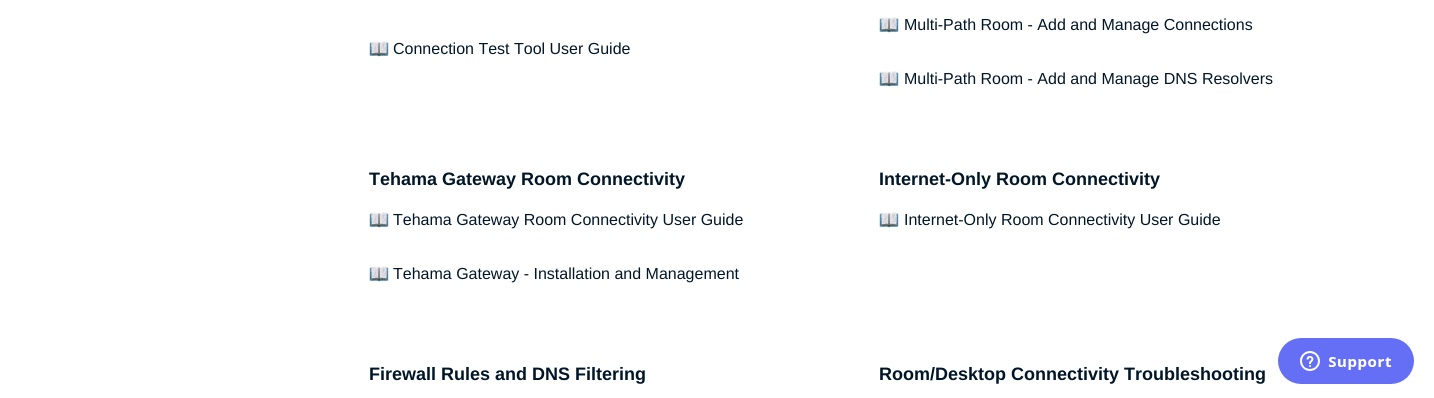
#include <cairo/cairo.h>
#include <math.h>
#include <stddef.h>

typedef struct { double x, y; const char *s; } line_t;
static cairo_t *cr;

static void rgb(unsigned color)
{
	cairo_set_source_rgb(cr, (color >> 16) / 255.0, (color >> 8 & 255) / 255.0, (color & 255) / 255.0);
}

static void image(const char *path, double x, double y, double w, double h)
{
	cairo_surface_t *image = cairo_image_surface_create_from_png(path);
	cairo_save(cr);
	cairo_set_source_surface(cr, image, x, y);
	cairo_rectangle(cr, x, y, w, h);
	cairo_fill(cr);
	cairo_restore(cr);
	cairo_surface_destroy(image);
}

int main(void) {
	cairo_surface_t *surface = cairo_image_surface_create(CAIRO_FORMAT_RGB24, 1434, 398);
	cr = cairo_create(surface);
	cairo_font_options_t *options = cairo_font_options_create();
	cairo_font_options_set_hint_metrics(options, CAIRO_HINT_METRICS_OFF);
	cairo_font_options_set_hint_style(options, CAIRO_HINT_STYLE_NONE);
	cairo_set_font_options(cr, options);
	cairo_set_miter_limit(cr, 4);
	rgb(0xffffff);
	cairo_paint(cr);
	image("img/1.png", 369, 41, 20, 16);
	image("img/1.png", 879, 17, 20, 16);
	image("img/1.png", 879, 71, 20, 16);
	image("img/1.png", 369, 212, 20, 16);
	image("img/1.png", 369, 266, 20, 16);
	image("img/1.png", 879, 212, 20, 16);
	image("img/2.png", 1278, 338, 136, 46);
	cairo_select_font_face(cr, "Liberation Sans", CAIRO_FONT_SLANT_NORMAL, CAIRO_FONT_WEIGHT_NORMAL);
	cairo_set_font_size(cr, 16);
	rgb(0x011627);
	{
		static const line_t items[] = {
			{393, 54, "Connection Test Tool User Guide"},
			{904, 30, "Multi-Path Room - Add and Manage Connections"},
			{904, 84, "Multi-Path Room - Add and Manage DNS Resolvers"},
		};
		for (size_t i = 0; i < sizeof items / sizeof *items; i++) {
			cairo_move_to(cr, items[i].x, items[i].y);
			cairo_show_text(cr, items[i].s);
		}
	}
	cairo_select_font_face(cr, "Liberation Sans", CAIRO_FONT_SLANT_NORMAL, CAIRO_FONT_WEIGHT_BOLD);
	cairo_set_font_size(cr, 18);
	cairo_move_to(cr, 369, 185);
	cairo_show_text(cr, "Tehama Gateway Room Connectivity");
	cairo_select_font_face(cr, "Liberation Sans", CAIRO_FONT_SLANT_NORMAL, CAIRO_FONT_WEIGHT_NORMAL);
	cairo_set_font_size(cr, 16);
	cairo_move_to(cr, 393, 225);
	cairo_show_text(cr, "Tehama Gateway Room Connectivity User Guide");
	cairo_move_to(cr, 393, 279);
	cairo_show_text(cr, "Tehama Gateway - Installation and Management");
	cairo_select_font_face(cr, "Liberation Sans", CAIRO_FONT_SLANT_NORMAL, CAIRO_FONT_WEIGHT_BOLD);
	cairo_set_font_size(cr, 18);
	cairo_move_to(cr, 879, 185);
	cairo_show_text(cr, "Internet-Only Room Connectivity");
	cairo_select_font_face(cr, "Liberation Sans", CAIRO_FONT_SLANT_NORMAL, CAIRO_FONT_WEIGHT_NORMAL);
	cairo_set_font_size(cr, 16);
	cairo_move_to(cr, 904, 225);
	cairo_show_text(cr, "Internet-Only Room Connectivity User Guide");
	cairo_select_font_face(cr, "Liberation Sans", CAIRO_FONT_SLANT_NORMAL, CAIRO_FONT_WEIGHT_BOLD);
	cairo_set_font_size(cr, 18);
	cairo_move_to(cr, 369, 380);
	cairo_show_text(cr, "Firewall Rules and DNS Filtering");
	cairo_move_to(cr, 879, 380);
	cairo_show_text(cr, "Room/Desktop Connectivity Troubleshooting");
	cairo_surface_write_to_png(surface, "page.png");
	cairo_font_options_destroy(options);
	cairo_destroy(cr);
	cairo_surface_destroy(surface);
	return 0;
}
